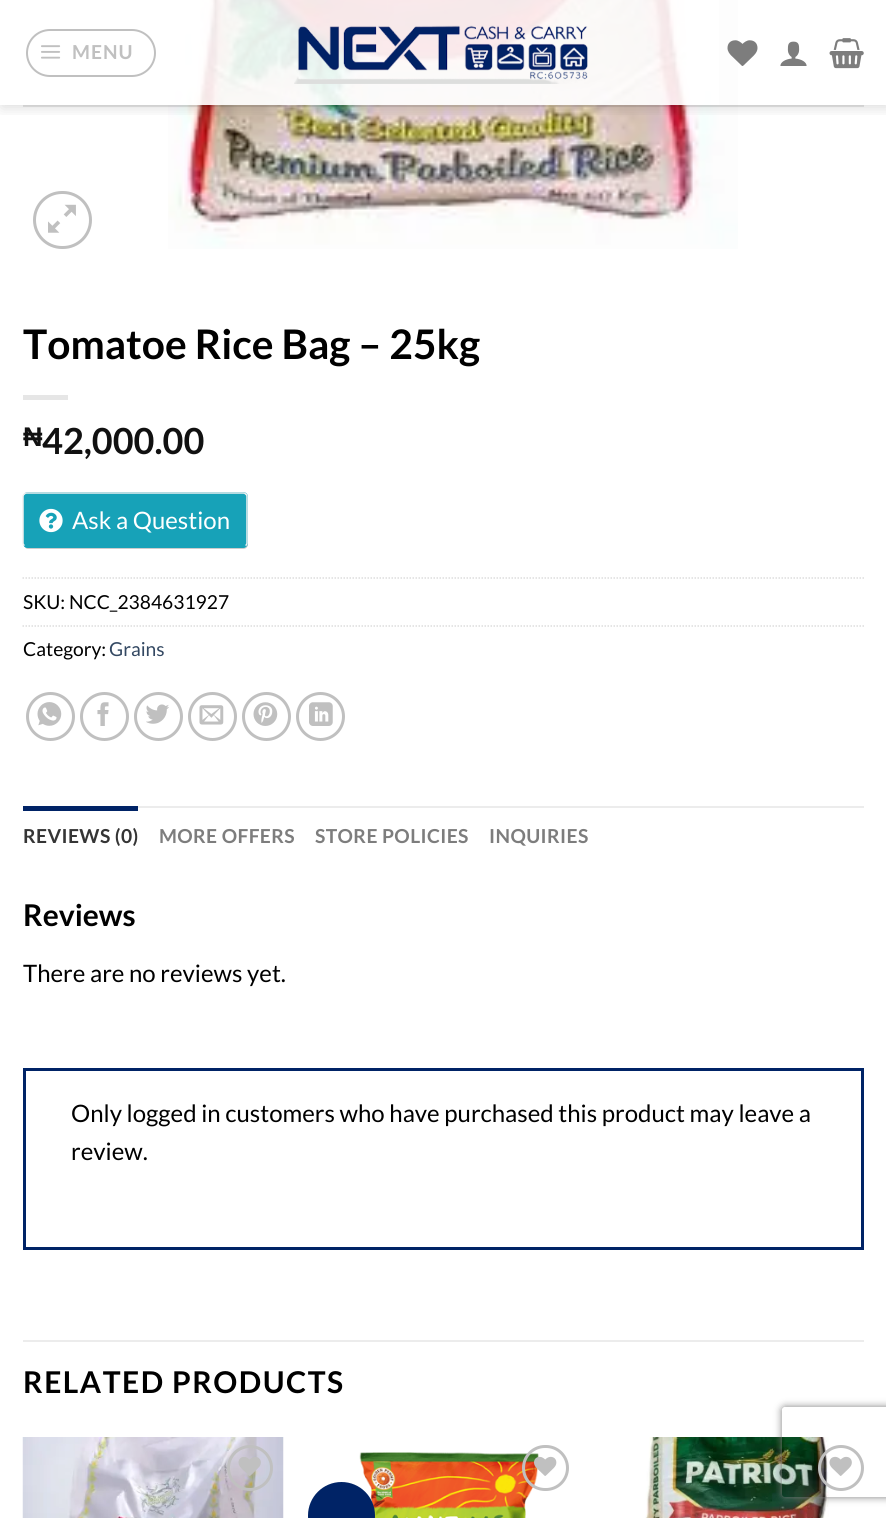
#include <cairo/cairo.h>
#include <math.h>
#include <stddef.h>

typedef struct { double x, y; const char *s; } line_t;
static cairo_t *cr;

static void rgb(unsigned color)
{
	cairo_set_source_rgb(cr, (color >> 16) / 255.0, (color >> 8 & 255) / 255.0, (color & 255) / 255.0);
}

static void tracked(double x, double y, const char *s, double letter, double word)
{
	cairo_move_to(cr, x, y);
	while (*s) {
		char ch[5] = {0};
		int n = 0;
		do ch[n++] = *s++; while ((*s & 0xC0) == 0x80);
		cairo_show_text(cr, ch);
		cairo_rel_move_to(cr, letter + word * (*ch == ' '), 0);
	}
}

static void rrect(double x, double y, double w, double h, double r)
{
	cairo_new_sub_path(cr);
	cairo_arc(cr, x + w - r, y + h - r, r, 0, M_PI / 2);
	cairo_arc(cr, x + r, y + h - r, r, M_PI / 2, M_PI);
	cairo_arc(cr, x + r, y + r, r, M_PI, 1.5 * M_PI);
	cairo_arc(cr, x + w - r, y + r, r, 1.5 * M_PI, 2 * M_PI);
	cairo_close_path(cr);
}

static void soft_shadow(double x, double y, double w, double h, double r, double blur, double alpha)
{
	cairo_push_group_with_content(cr, CAIRO_CONTENT_ALPHA);
	cairo_set_operator(cr, CAIRO_OPERATOR_SOURCE);
	for (int i = 15; i >= -15 && fmin(w, h) + blur * i / 3 > 0; i -= 2) {
		double e = blur * i / 6;
		cairo_set_source_rgba(cr, 0, 0, 0, alpha * erfc((i - 1) / 8.5) / 2);
		rrect(x - e, y - e, w + 2 * e, h + 2 * e, fmax(0, fmin(r + e + blur * .6, fmin(w, h) / 2 + e)));
		cairo_fill(cr);
	}
	cairo_pattern_t *soft = cairo_pop_group(cr);
	cairo_mask(cr, soft);
	cairo_pattern_destroy(soft);
}

static void image(const char *path, double x, double y, double w, double h)
{
	cairo_surface_t *image = cairo_image_surface_create_from_png(path);
	cairo_save(cr);
	cairo_set_source_surface(cr, image, x, y);
	cairo_rectangle(cr, x, y, w, h);
	cairo_fill(cr);
	cairo_restore(cr);
	cairo_surface_destroy(image);
}

int main(void) {
	cairo_surface_t *surface = cairo_image_surface_create(CAIRO_FORMAT_RGB24, 886, 1518);
	cr = cairo_create(surface);
	cairo_font_options_t *options = cairo_font_options_create();
	cairo_font_options_set_hint_metrics(options, CAIRO_HINT_METRICS_OFF);
	cairo_font_options_set_hint_style(options, CAIRO_HINT_STYLE_NONE);
	cairo_set_font_options(cr, options);
	cairo_set_miter_limit(cr, 4);
	rgb(0xffffff);
	cairo_paint(cr);
	image("img/7.png", 168, 0, 570, 249);
	cairo_save(cr);
	cairo_rectangle(cr, 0, 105, 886, 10);
	cairo_clip(cr);
	rgb(0x000000);
	soft_shadow(2, 2, 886, 105, 0, 7.5, 0.15);
	cairo_restore(cr);
	rrect(27, 30, 128, 46, 23);
	rgb(0xc0c0c0);
	cairo_stroke(cr);
	image("img/1.png", 41, 45, 20, 14);
	cairo_set_source_rgba(cr, 1, 1, 1, 0.9);
	cairo_rectangle(cr, 168, 0, 551, 105);
	cairo_fill(cr);
	image("img/2.png", 294, 25, 294, 59);
	image("img/3.png", 727, 40, 31, 26);
	image("img/4.png", 780, 41, 27, 25);
	image("img/5.png", 829, 38, 35, 31);
	cairo_set_source_rgba(cr, 0, 0, 0, 0.1);
	cairo_rectangle(cr, 23, 105, 841, 2);
	cairo_fill(cr);
	rrect(34.5, 192.5, 56, 55, 27.5);
	rgb(0xc0c0c0);
	cairo_set_line_width(cr, 3);
	cairo_stroke(cr);
	image("img/6.png", 48, 204, 28, 29);
	rgb(0xe6e6e6);
	cairo_rectangle(cr, 23, 395, 45, 5);
	cairo_fill(cr);
	rgb(0xcccccc);
	cairo_new_path(cr);
	cairo_move_to(cr, 23, 545);
	cairo_curve_to(cr, 24, 547, 26, 549, 28, 549);
	cairo_line_to(cr, 243, 549);
	cairo_curve_to(cr, 246, 549, 248, 547, 248, 544);
	cairo_line_to(cr, 248, 499);
	cairo_line_to(cr, 248, 497);
	cairo_line_to(cr, 248, 543);
	cairo_curve_to(cr, 248, 545, 245, 548, 243, 548);
	cairo_line_to(cr, 27, 548);
	cairo_curve_to(cr, 25, 548, 24, 547, 23, 545);
	cairo_close_path(cr);
	cairo_fill(cr);
	rgb(0x17a2b8);
	rrect(23, 492, 225, 56, 5);
	cairo_fill(cr);
	cairo_new_path(cr);
	cairo_move_to(cr, 245.5, 545.5);
	cairo_curve_to(cr, 245, 546.5, 244, 547, 243, 547);
	cairo_line_to(cr, 27, 547);
	cairo_curve_to(cr, 26, 547, 25, 546.5, 24.5, 545.5);
	cairo_set_line_width(cr, 1.5);
	cairo_stroke(cr);
	cairo_new_path(cr);
	cairo_move_to(cr, 24.5, 545.5);
	cairo_curve_to(cr, 23.5, 545, 23, 544, 23, 543);
	cairo_line_to(cr, 23, 496.5);
	cairo_curve_to(cr, 23, 495.5, 23.5, 494.5, 24.5, 494);
	cairo_curve_to(cr, 25, 493, 26, 493, 27, 493);
	cairo_line_to(cr, 243, 493);
	cairo_curve_to(cr, 244, 493, 245, 493, 245.5, 494);
	cairo_curve_to(cr, 246.5, 494.5, 247, 495.5, 247, 496.5);
	cairo_line_to(cr, 247, 543);
	cairo_curve_to(cr, 247, 544, 246.5, 545, 245.5, 545.5);
	rgb(0xf0f0f0);
	cairo_stroke(cr);
	image("img/8.png", 39, 508, 24, 25);
	cairo_new_path(cr);
	cairo_move_to(cr, 22.5, 578);
	cairo_line_to(cr, 864, 578);
	rgb(0xdddddd);
	cairo_set_dash(cr, (double[]){1.5, 1.5}, 2, 0);
	cairo_stroke(cr);
	cairo_new_path(cr);
	cairo_move_to(cr, 22.5, 626);
	cairo_line_to(cr, 864, 626);
	cairo_stroke(cr);
	cairo_arc(cr, 50.5, 716.5, 23, 0, 2 * M_PI);
	rgb(0xc0c0c0);
	cairo_set_line_width(cr, 3);
	cairo_set_dash(cr, NULL, 0, 0);
	cairo_stroke(cr);
	image("img/9.png", 37, 702, 25, 24);
	cairo_arc(cr, 104.5, 716.5, 23, 0, 2 * M_PI);
	cairo_stroke(cr);
	image("img/10.png", 97, 702, 12, 24);
	cairo_arc(cr, 158.5, 716.5, 23, 0, 2 * M_PI);
	cairo_stroke(cr);
	image("img/11.png", 146, 704, 23, 20);
	cairo_arc(cr, 212.5, 716.5, 23, 0, 2 * M_PI);
	cairo_stroke(cr);
	image("img/12.png", 199, 705, 25, 20);
	cairo_arc(cr, 266.5, 716.5, 23, 0, 2 * M_PI);
	cairo_stroke(cr);
	image("img/13.png", 253, 702, 25, 24);
	cairo_arc(cr, 320.5, 716.5, 23, 0, 2 * M_PI);
	cairo_stroke(cr);
	image("img/14.png", 309, 702, 24, 24);
	rgb(0xececec);
	cairo_rectangle(cr, 138, 806, 726, 2);
	cairo_fill(cr);
	rgb(0x002366);
	cairo_rectangle(cr, 23, 806, 115, 5);
	cairo_fill(cr);
	cairo_rectangle(cr, 24.5, 1069.5, 838, 179);
	cairo_stroke(cr);
	rgb(0xececec);
	cairo_rectangle(cr, 23, 1340, 841, 2);
	cairo_fill(cr);
	image("img/15.png", 22, 1437, 262, 81);
	cairo_arc(cr, 250, 1468, 21.5, 0, 2 * M_PI);
	rgb(0xc0c0c0);
	cairo_stroke(cr);
	image("img/16.png", 238, 1457, 23, 19);
	image("img/17.png", 359, 1452, 180, 66);
	rgb(0x002366);
	rrect(308, 1482, 67, 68, 33.5);
	cairo_fill(cr);
	rrect(523.5, 1446.5, 44, 43, 21.5);
	rgb(0xc0c0c0);
	cairo_stroke(cr);
	image("img/18.png", 534, 1456, 23, 20);
	image("img/19.png", 645, 1437, 184, 81);
	cairo_arc(cr, 841, 1468, 21.5, 0, 2 * M_PI);
	cairo_stroke(cr);
	image("img/20.png", 829, 1456, 23, 20);
	cairo_save(cr);
	cairo_set_fill_rule(cr, CAIRO_FILL_RULE_EVEN_ODD);
	cairo_new_path(cr);
	cairo_move_to(cr, 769, 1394);
	cairo_line_to(cr, 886, 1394);
	cairo_line_to(cr, 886, 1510);
	cairo_line_to(cr, 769, 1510);
	cairo_close_path(cr);
	cairo_move_to(cr, 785, 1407);
	cairo_line_to(cr, 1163, 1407);
	cairo_curve_to(cr, 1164.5, 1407, 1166, 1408.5, 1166, 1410);
	cairo_line_to(cr, 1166, 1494);
	cairo_curve_to(cr, 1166, 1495.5, 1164.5, 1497, 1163, 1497);
	cairo_line_to(cr, 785, 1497);
	cairo_curve_to(cr, 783.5, 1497, 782, 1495.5, 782, 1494);
	cairo_line_to(cr, 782, 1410);
	cairo_curve_to(cr, 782, 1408.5, 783.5, 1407, 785, 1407);
	cairo_close_path(cr);
	cairo_clip(cr);
	rgb(0x808080);
	soft_shadow(782, 1407, 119, 90, 3, 4, 1);
	cairo_restore(cr);
	cairo_select_font_face(cr, "Lato", CAIRO_FONT_SLANT_NORMAL, CAIRO_FONT_WEIGHT_BOLD);
	cairo_set_font_size(cr, 19.25);
	tracked(72, 59, "MENU", 1, 0);
	cairo_set_font_size(cr, 40.75);
	rgb(0x000000);
	cairo_move_to(cr, 23, 359);
	cairo_show_text(cr, "Tomatoe Rice Bag – 25kg");
	cairo_select_font_face(cr, "Liberation Sans", CAIRO_FONT_SLANT_NORMAL, CAIRO_FONT_WEIGHT_BOLD);
	cairo_set_font_size(cr, 27);
	rgb(0x111111);
	cairo_move_to(cr, 23, 446);
	cairo_show_text(cr, "₦");
	cairo_select_font_face(cr, "Lato", CAIRO_FONT_SLANT_NORMAL, CAIRO_FONT_WEIGHT_BOLD);
	cairo_set_font_size(cr, 36);
	cairo_move_to(cr, 42, 454);
	cairo_show_text(cr, "42,000.00");
	cairo_select_font_face(cr, "Lato", CAIRO_FONT_SLANT_NORMAL, CAIRO_FONT_WEIGHT_NORMAL);
	cairo_set_font_size(cr, 24);
	rgb(0xffffff);
	cairo_move_to(cr, 72, 529);
	cairo_show_text(cr, "Ask a Question");
	cairo_set_font_size(cr, 19.25);
	rgb(0x000000);
	cairo_move_to(cr, 23, 609);
	cairo_show_text(cr, "SKU: NCC_2384631927");
	cairo_move_to(cr, 23, 656);
	cairo_show_text(cr, "Category:");
	rgb(0x334862);
	cairo_move_to(cr, 109, 656);
	cairo_show_text(cr, "Grains");
	cairo_select_font_face(cr, "Lato", CAIRO_FONT_SLANT_NORMAL, CAIRO_FONT_WEIGHT_BOLD);
	rgb(0x353535);
	tracked(23, 843, "REVIEWS (0)", 0.4, 0);
	rgb(0x7d7d7d);
	{
		static const line_t items[] = {
			{159, 843, "MORE OFFERS"},
			{315, 843, "STORE POLICIES"},
			{489, 843, "INQUIRIES"},
		};
		for (size_t i = 0; i < sizeof items / sizeof *items; i++) {
			tracked(items[i].x, items[i].y, items[i].s, 0.4, 0);
		}
	}
	cairo_set_font_size(cr, 30);
	rgb(0x000000);
	cairo_move_to(cr, 23, 926);
	cairo_show_text(cr, "Reviews");
	cairo_select_font_face(cr, "Lato", CAIRO_FONT_SLANT_NORMAL, CAIRO_FONT_WEIGHT_NORMAL);
	cairo_set_font_size(cr, 24);
	{
		static const line_t items[] = {
			{23, 982, "There are no reviews yet."},
			{71, 1122, "Only logged in customers who have purchased this product may leave a"},
			{71, 1160, "review."},
		};
		for (size_t i = 0; i < sizeof items / sizeof *items; i++) {
			cairo_move_to(cr, items[i].x, items[i].y);
			cairo_show_text(cr, items[i].s);
		}
	}
	cairo_select_font_face(cr, "Lato", CAIRO_FONT_SLANT_NORMAL, CAIRO_FONT_WEIGHT_BOLD);
	cairo_set_font_size(cr, 30);
	tracked(23, 1393, "RELATED PRODUCTS", 1.5, 0);
	cairo_surface_write_to_png(surface, "page.png");
	cairo_font_options_destroy(options);
	cairo_destroy(cr);
	cairo_surface_destroy(surface);
	return 0;
}
